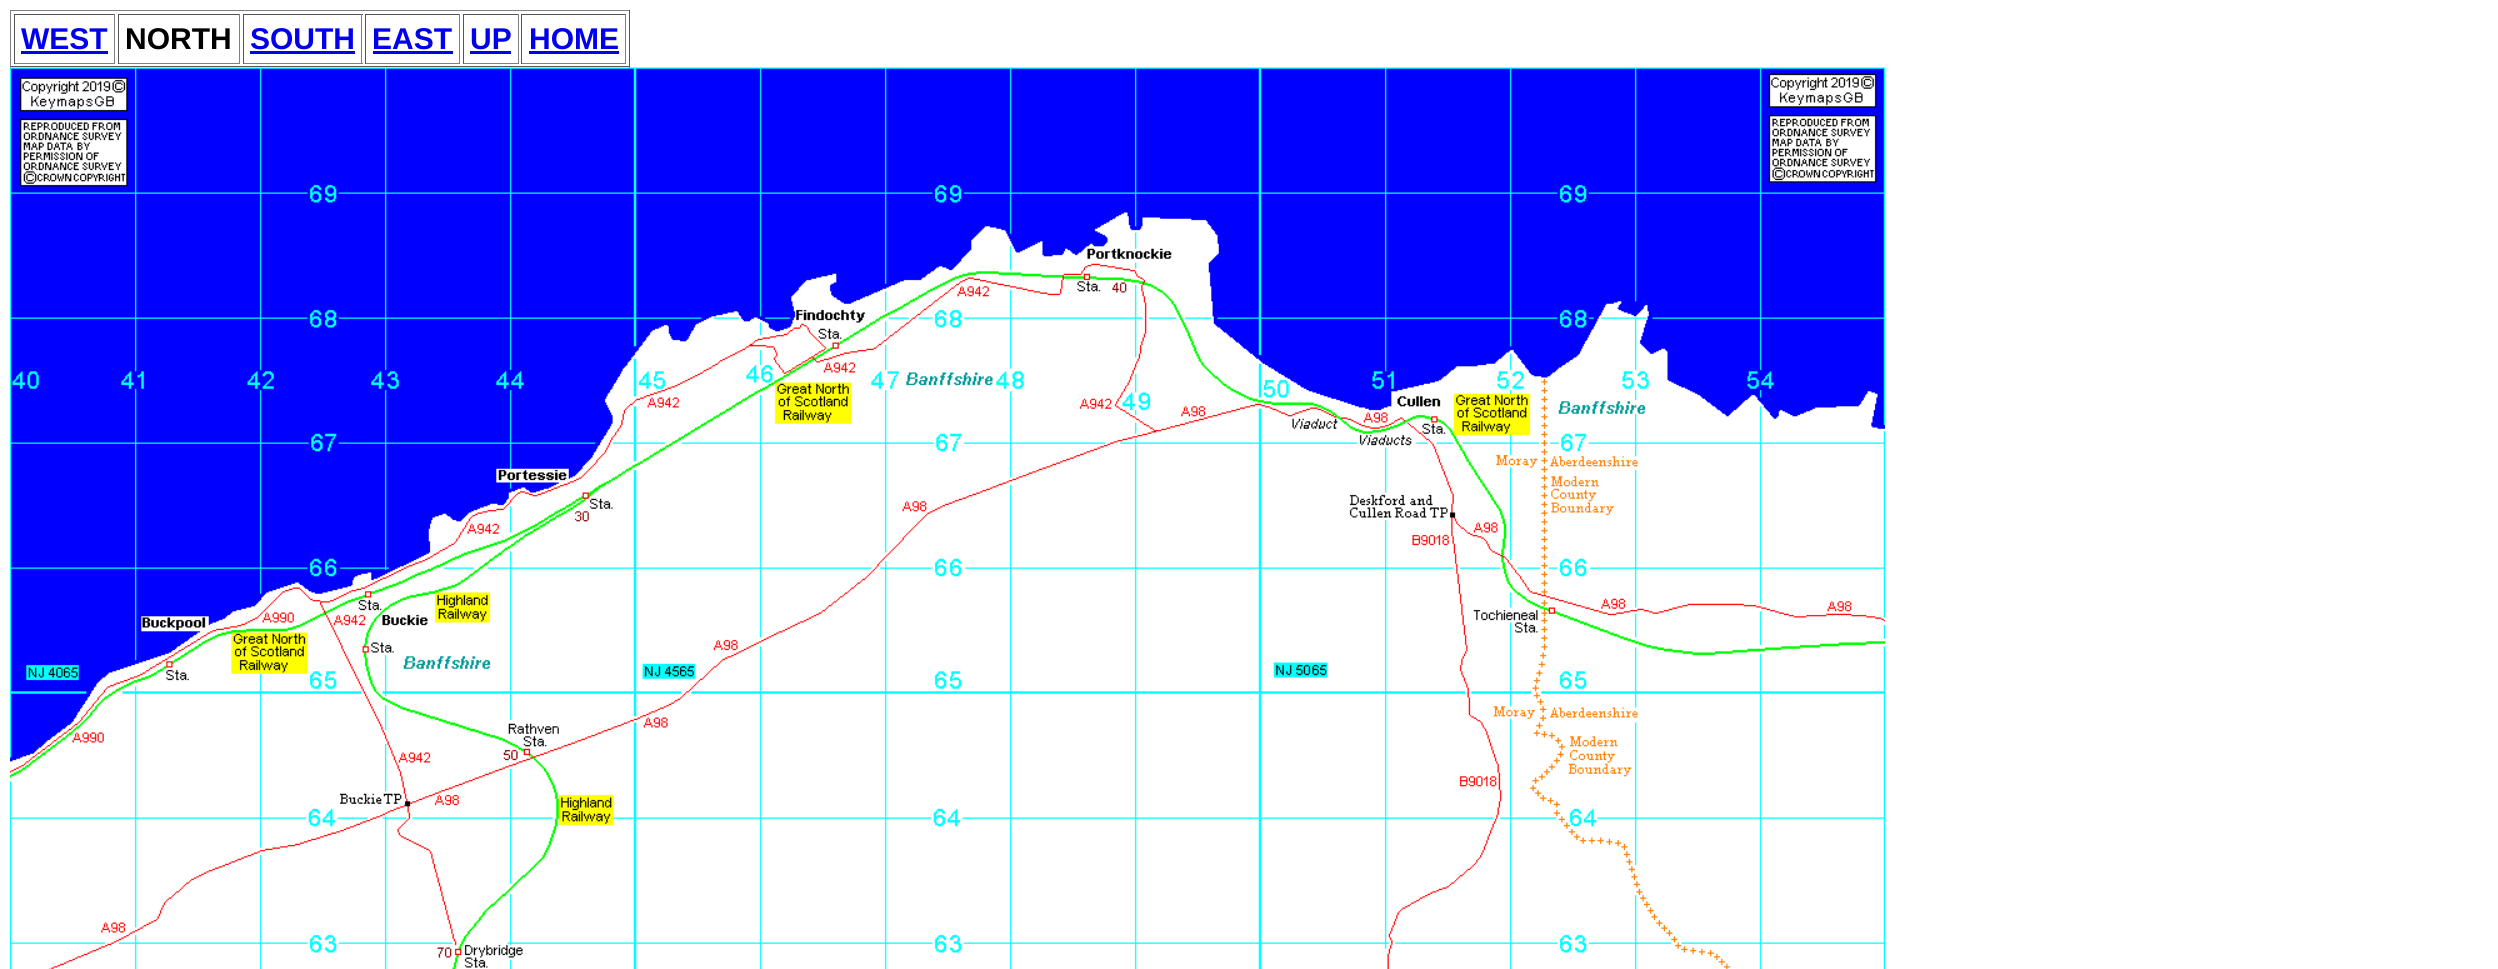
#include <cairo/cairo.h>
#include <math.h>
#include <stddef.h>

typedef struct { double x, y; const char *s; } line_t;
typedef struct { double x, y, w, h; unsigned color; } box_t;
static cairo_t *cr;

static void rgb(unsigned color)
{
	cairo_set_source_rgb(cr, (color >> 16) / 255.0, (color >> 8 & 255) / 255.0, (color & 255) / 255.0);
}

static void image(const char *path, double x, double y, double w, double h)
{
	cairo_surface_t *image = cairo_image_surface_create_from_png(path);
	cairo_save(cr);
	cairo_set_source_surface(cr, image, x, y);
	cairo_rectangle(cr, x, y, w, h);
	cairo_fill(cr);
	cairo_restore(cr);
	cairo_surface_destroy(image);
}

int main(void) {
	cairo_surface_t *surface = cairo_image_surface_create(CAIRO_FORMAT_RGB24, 2498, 969);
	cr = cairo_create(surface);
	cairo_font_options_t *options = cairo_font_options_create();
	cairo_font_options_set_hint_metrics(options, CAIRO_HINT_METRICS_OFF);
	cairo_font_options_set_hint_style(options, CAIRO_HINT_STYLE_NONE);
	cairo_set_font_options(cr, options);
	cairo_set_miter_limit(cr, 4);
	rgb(0xffffff);
	cairo_paint(cr);
	{
		static const box_t items[] = {
			{10, 10, 620, 1, 0x808080},
			{629, 10, 1, 58, 0x555555},
			{10, 66, 620, 1, 0x555555},
			{10, 10, 1, 58, 0x808080},
			{14, 14, 101, 1, 0x555555},
			{114, 14, 1, 50, 0x808080},
			{14, 63, 101, 1, 0x808080},
			{14, 14, 1, 50, 0x555555},
			{21, 51, 87, 3, 0x0000ee},
			{118, 14, 122, 1, 0x555555},
			{239, 14, 1, 50, 0x808080},
			{118, 63, 122, 1, 0x808080},
			{118, 14, 1, 50, 0x555555},
			{243, 14, 120, 1, 0x555555},
			{361, 14, 1, 50, 0x808080},
			{243, 63, 120, 1, 0x808080},
			{243, 14, 1, 50, 0x555555},
			{250, 51, 105, 3, 0x0000ee},
			{365, 14, 95, 1, 0x555555},
			{459, 14, 1, 50, 0x808080},
			{365, 63, 95, 1, 0x808080},
			{365, 14, 1, 50, 0x555555},
			{373, 51, 80, 3, 0x0000ee},
			{463, 14, 56, 1, 0x555555},
			{518, 14, 1, 50, 0x808080},
			{463, 63, 56, 1, 0x808080},
			{463, 14, 1, 50, 0x555555},
			{470, 51, 41, 3, 0x0000ee},
			{521, 14, 105, 1, 0x555555},
			{625, 14, 1, 50, 0x808080},
			{521, 63, 105, 1, 0x808080},
			{521, 14, 1, 50, 0x555555},
			{529, 51, 90, 3, 0x0000ee},
		};
		for (size_t i = 0; i < sizeof items / sizeof *items; i++) {
			rgb(items[i].color);
			cairo_rectangle(cr, items[i].x, items[i].y, items[i].w, items[i].h);
			cairo_fill(cr);
		}
	}
	image("img/1.png", 10, 67, 1875, 902);
	cairo_select_font_face(cr, "Liberation Sans", CAIRO_FONT_SLANT_NORMAL, CAIRO_FONT_WEIGHT_BOLD);
	cairo_set_font_size(cr, 30);
	cairo_move_to(cr, 21, 49);
	cairo_show_text(cr, "WEST");
	rgb(0x000000);
	cairo_move_to(cr, 125, 49);
	cairo_show_text(cr, "NORTH");
	rgb(0x0000ee);
	{
		static const line_t items[] = {
			{250, 49, "SOUTH"},
			{372, 49, "EAST"},
			{470, 49, "UP"},
			{529, 49, "HOME"},
		};
		for (size_t i = 0; i < sizeof items / sizeof *items; i++) {
			cairo_move_to(cr, items[i].x, items[i].y);
			cairo_show_text(cr, items[i].s);
		}
	}
	cairo_surface_write_to_png(surface, "page.png");
	cairo_font_options_destroy(options);
	cairo_destroy(cr);
	cairo_surface_destroy(surface);
	return 0;
}
